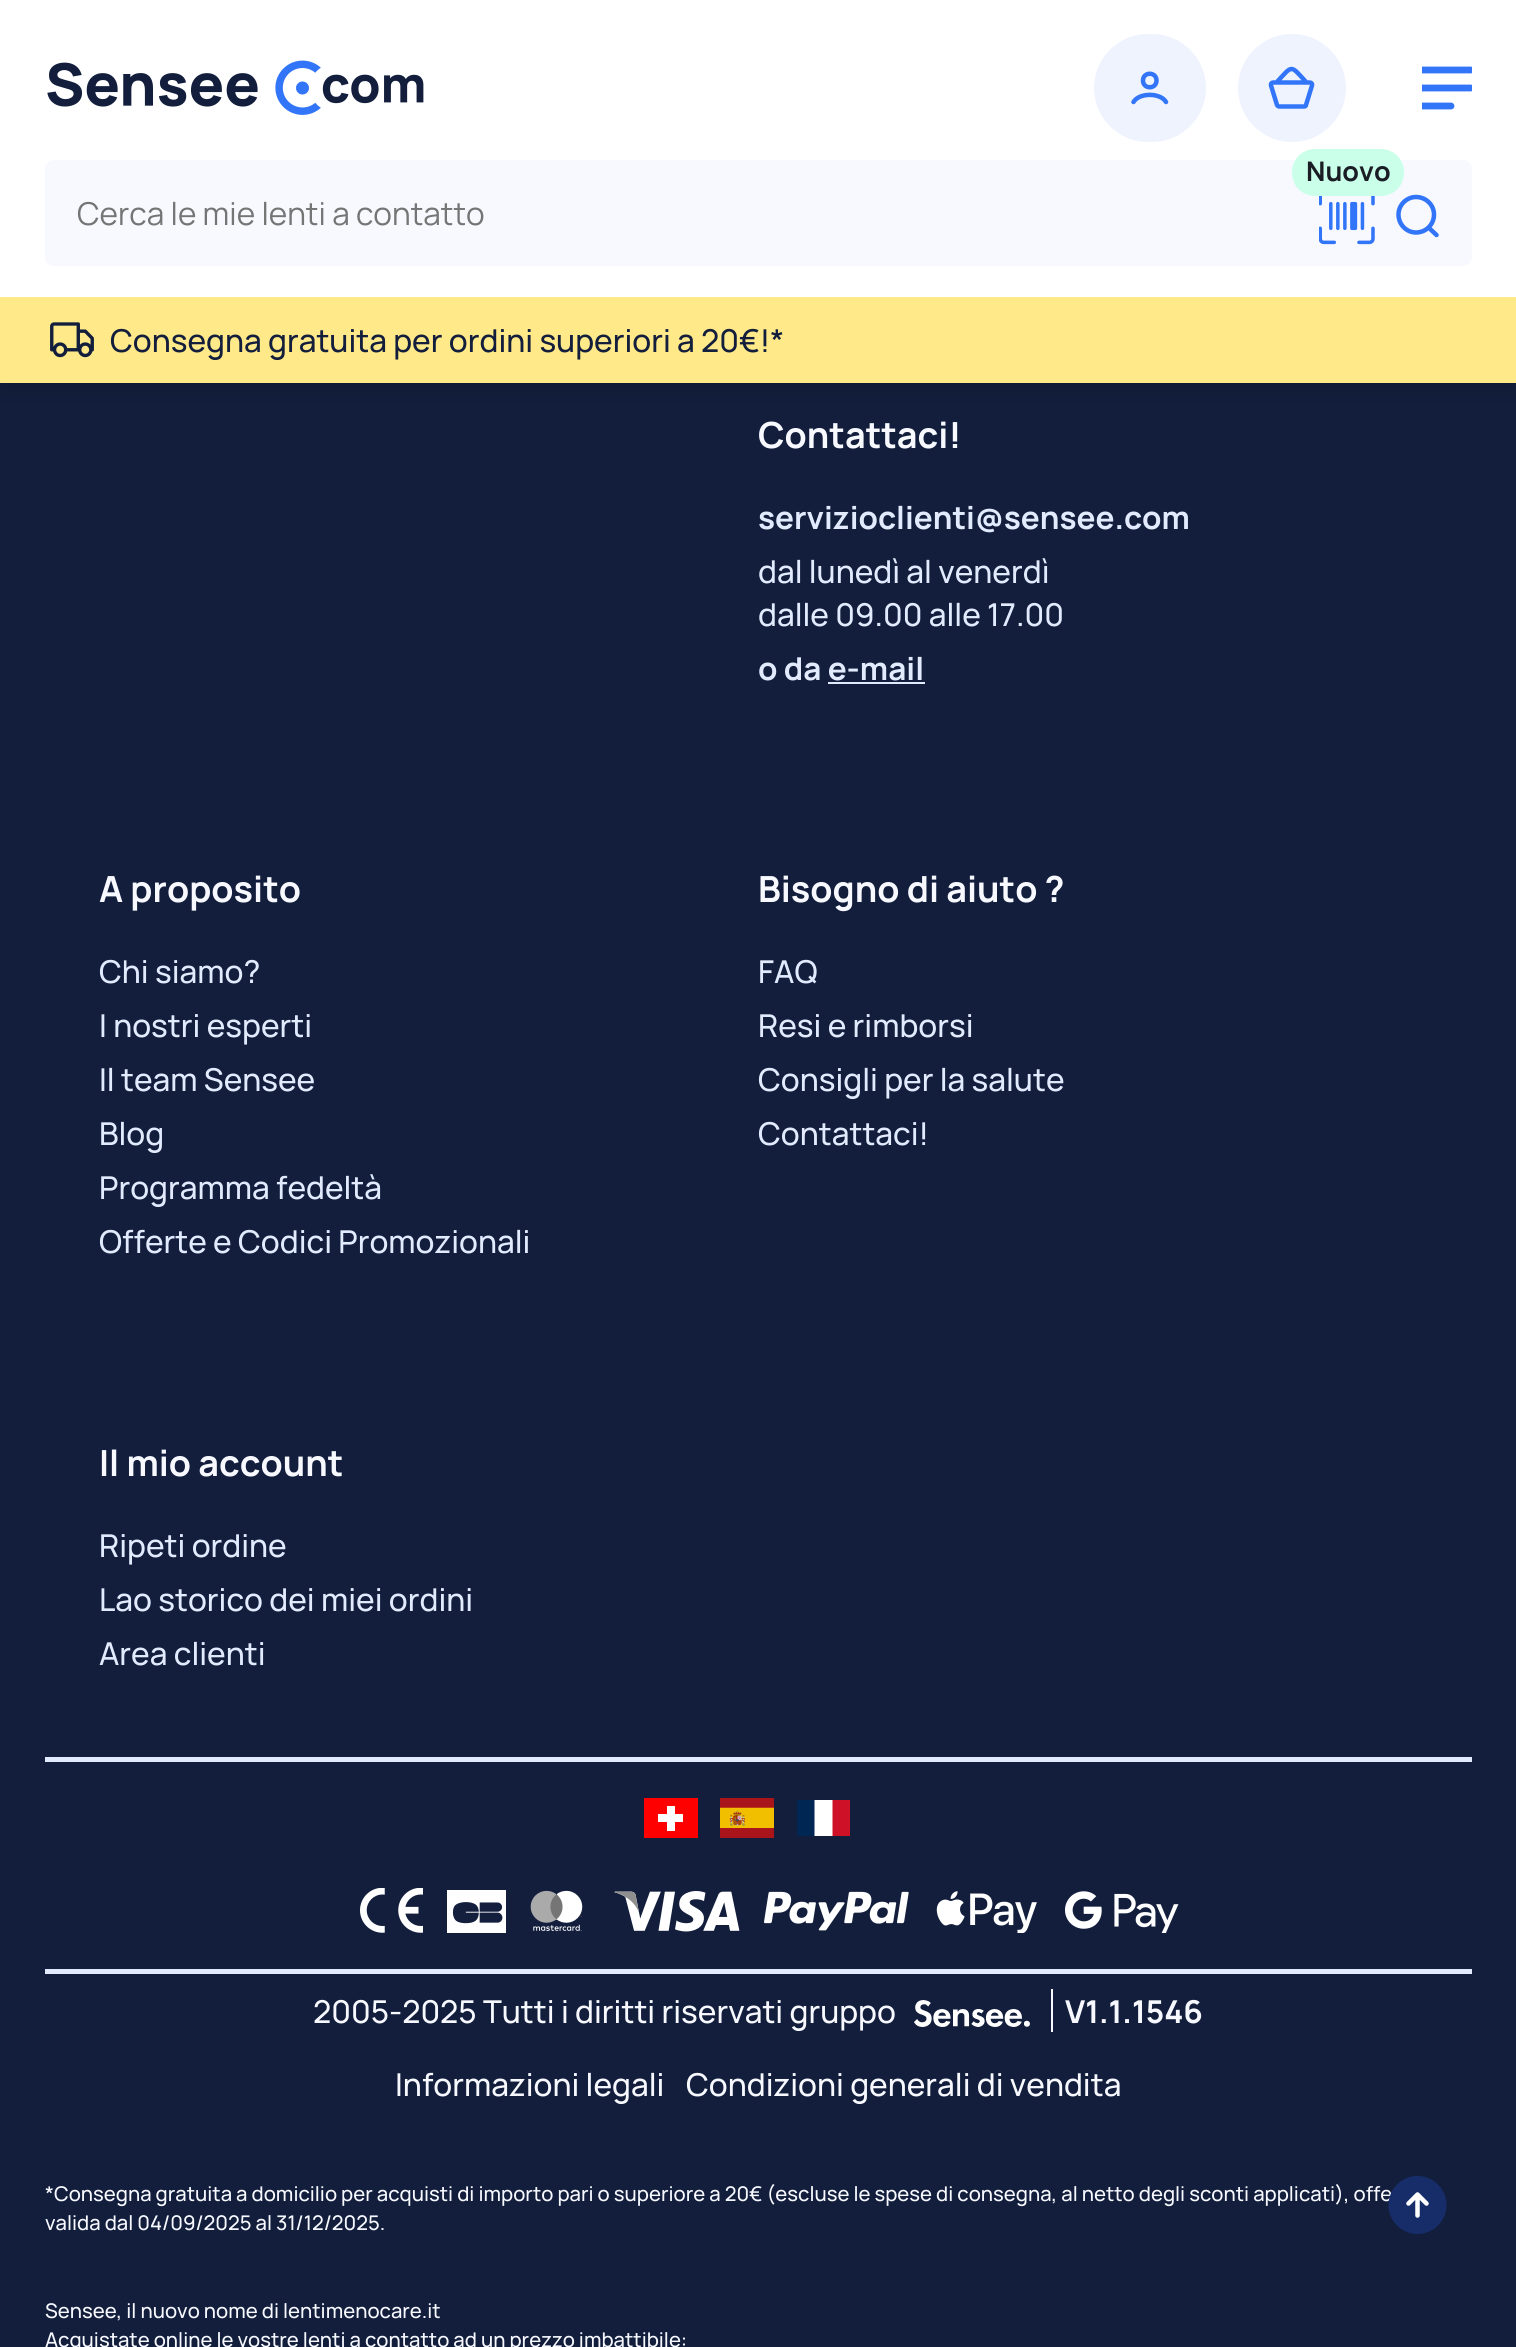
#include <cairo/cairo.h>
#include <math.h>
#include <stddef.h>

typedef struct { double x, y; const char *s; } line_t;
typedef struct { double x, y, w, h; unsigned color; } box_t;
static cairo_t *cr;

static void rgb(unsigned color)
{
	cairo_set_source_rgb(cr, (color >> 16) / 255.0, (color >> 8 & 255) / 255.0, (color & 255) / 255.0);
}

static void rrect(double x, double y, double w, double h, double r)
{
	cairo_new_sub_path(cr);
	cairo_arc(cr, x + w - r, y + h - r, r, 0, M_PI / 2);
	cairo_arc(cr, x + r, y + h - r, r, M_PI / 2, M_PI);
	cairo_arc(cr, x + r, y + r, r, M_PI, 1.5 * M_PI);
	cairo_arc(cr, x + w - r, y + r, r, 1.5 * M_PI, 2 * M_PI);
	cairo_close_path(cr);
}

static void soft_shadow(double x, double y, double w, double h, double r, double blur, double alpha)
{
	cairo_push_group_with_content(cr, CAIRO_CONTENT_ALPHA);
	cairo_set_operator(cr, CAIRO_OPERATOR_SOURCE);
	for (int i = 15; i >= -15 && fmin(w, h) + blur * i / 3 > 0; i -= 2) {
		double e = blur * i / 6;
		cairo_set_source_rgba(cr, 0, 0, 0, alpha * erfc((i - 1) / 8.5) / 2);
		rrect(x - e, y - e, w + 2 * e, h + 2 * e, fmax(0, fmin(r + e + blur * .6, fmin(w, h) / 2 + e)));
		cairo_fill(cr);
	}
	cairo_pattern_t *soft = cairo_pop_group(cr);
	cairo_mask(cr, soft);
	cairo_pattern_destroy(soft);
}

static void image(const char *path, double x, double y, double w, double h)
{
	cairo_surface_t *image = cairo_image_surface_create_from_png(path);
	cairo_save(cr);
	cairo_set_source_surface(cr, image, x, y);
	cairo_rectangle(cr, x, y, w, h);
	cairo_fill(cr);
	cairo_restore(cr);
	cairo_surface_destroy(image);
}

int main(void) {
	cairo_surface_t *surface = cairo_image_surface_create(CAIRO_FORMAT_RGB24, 1516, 2347);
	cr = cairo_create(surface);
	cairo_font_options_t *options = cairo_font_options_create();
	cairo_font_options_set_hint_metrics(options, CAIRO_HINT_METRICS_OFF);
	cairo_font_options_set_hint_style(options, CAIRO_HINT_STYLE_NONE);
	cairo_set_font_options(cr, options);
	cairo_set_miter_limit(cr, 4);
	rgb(0x121e3c);
	cairo_paint(cr);
	rgb(0x000000);
	soft_shadow(0, 0, 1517, 383, 0, 17, 0.2);
	rgb(0xffffff);
	cairo_rectangle(cr, 0, 0, 1516, 297);
	cairo_fill(cr);
	image("img/1.png", 47, 60, 377, 55);
	rgb(0xeef3fe);
	rrect(1094, 34, 112, 108, 54);
	cairo_fill(cr);
	cairo_new_path(cr);
	cairo_move_to(cr, 1133.5, 102);
	cairo_curve_to(cr, 1139, 92.5, 1160.5, 92.5, 1166, 102);
	cairo_move_to(cr, 1156.5, 80.5);
	cairo_curve_to(cr, 1156.5, 89.5, 1143, 89.5, 1143, 80.5);
	cairo_curve_to(cr, 1143, 71.5, 1156.5, 71.5, 1156.5, 80.5);
	cairo_close_path(cr);
	rgb(0x3275f9);
	cairo_set_line_width(cr, 4.5);
	cairo_set_line_cap(cr, CAIRO_LINE_CAP_ROUND);
	cairo_stroke(cr);
	rgb(0xeef3fe);
	cairo_arc(cr, 1292, 88, 54, 0, 2 * M_PI);
	cairo_fill(cr);
	cairo_new_path(cr);
	cairo_move_to(cr, 1276.5, 82.5);
	cairo_curve_to(cr, 1293, 64.5, 1290, 64.5, 1306.5, 82.5);
	cairo_move_to(cr, 1312, 85.5);
	cairo_line_to(cr, 1306, 105);
	cairo_curve_to(cr, 1306, 106, 1305, 106.5, 1304, 106.5);
	cairo_line_to(cr, 1279.5, 106.5);
	cairo_curve_to(cr, 1278.5, 106.5, 1277.5, 106, 1277, 105);
	cairo_line_to(cr, 1271, 85.5);
	cairo_curve_to(cr, 1270.5, 84, 1271.5, 82.5, 1273, 82.5);
	cairo_line_to(cr, 1310, 82.5);
	cairo_curve_to(cr, 1311.5, 82.5, 1312.5, 84, 1312, 85.5);
	cairo_close_path(cr);
	rgb(0x3275f9);
	cairo_set_line_join(cr, CAIRO_LINE_JOIN_ROUND);
	cairo_stroke(cr);
	cairo_save(cr);
	cairo_rectangle(cr, 1422, 65, 50, 45);
	cairo_clip(cr);
	cairo_new_path(cr);
	cairo_move_to(cr, 1451, 106);
	cairo_line_to(cr, 1422.5, 106);
	cairo_move_to(cr, 1470.5, 88);
	cairo_line_to(cr, 1422.5, 88);
	cairo_move_to(cr, 1470.5, 70);
	cairo_line_to(cr, 1422.5, 70);
	cairo_set_line_width(cr, 6.8);
	cairo_set_line_join(cr, CAIRO_LINE_JOIN_MITER);
	cairo_stroke(cr);
	cairo_restore(cr);
	rgb(0xf7f9ff);
	rrect(45, 160, 1427, 106, 9);
	cairo_fill(cr);
	cairo_new_path(cr);
	cairo_move_to(cr, 1428.5, 227.5);
	cairo_line_to(cr, 1436.5, 235);
	cairo_move_to(cr, 1434, 214.5);
	cairo_curve_to(cr, 1434, 224.5, 1426, 232.5, 1416, 232.5);
	cairo_curve_to(cr, 1406.5, 232.5, 1398.5, 224.5, 1398.5, 214.5);
	cairo_curve_to(cr, 1398.5, 205, 1406.5, 197, 1416, 197);
	cairo_curve_to(cr, 1426, 197, 1434, 205, 1434, 214.5);
	cairo_close_path(cr);
	rgb(0x3275f9);
	cairo_set_line_join(cr, CAIRO_LINE_JOIN_MITER);
	cairo_stroke(cr);
	rgb(0xcaffe9);
	rrect(1292, 149, 112, 47, 23);
	cairo_fill(cr);
	image("img/2.png", 1319, 196, 56, 49);
	rgb(0xffe989);
	cairo_rectangle(cr, 0, 297, 1516, 86);
	cairo_fill(cr);
	image("img/3.png", 50, 322, 44, 36);
	{
		static const box_t items[] = {
			{828, 682, 97, 2, 0xe2ebfe},
			{45, 1757, 1427, 5, 0xe2ebfe},
			{644, 1798, 54, 40, 0xff0000},
			{658, 1814, 25, 8, 0xffffff},
			{667, 1806, 8, 25, 0xffffff},
		};
		for (size_t i = 0; i < sizeof items / sizeof *items; i++) {
			rgb(items[i].color);
			cairo_rectangle(cr, items[i].x, items[i].y, items[i].w, items[i].h);
			cairo_fill(cr);
		}
	}
	image("img/4.png", 720, 1798, 54, 40);
	cairo_save(cr);
	cairo_rectangle(cr, 797, 1800, 54, 36);
	cairo_clip(cr);
	rgb(0xce1126);
	cairo_new_path(cr);
	cairo_move_to(cr, 796, 1800);
	cairo_line_to(cr, 850, 1800);
	cairo_line_to(cr, 850, 1836);
	cairo_line_to(cr, 796, 1836);
	cairo_fill(cr);
	rgb(0xffffff);
	cairo_new_path(cr);
	cairo_move_to(cr, 796.5, 1800);
	cairo_line_to(cr, 832.5, 1800);
	cairo_line_to(cr, 832.5, 1836);
	cairo_line_to(cr, 796.5, 1836);
	cairo_fill(cr);
	rgb(0x002654);
	cairo_new_path(cr);
	cairo_move_to(cr, 796.5, 1800);
	cairo_line_to(cr, 814.5, 1800);
	cairo_line_to(cr, 814.5, 1836);
	cairo_line_to(cr, 796.5, 1836);
	cairo_fill(cr);
	cairo_restore(cr);
	image("img/5.png", 360, 1888, 63, 45);
	image("img/6.png", 447, 1890, 59, 43);
	image("img/7.png", 530, 1890, 53, 41);
	image("img/8.png", 614, 1891, 126, 41);
	image("img/9.png", 764, 1891, 145, 40);
	image("img/10.png", 936, 1891, 101, 42);
	image("img/11.png", 1065, 1891, 114, 42);
	rgb(0xe2ebfe);
	cairo_rectangle(cr, 45, 1969, 1427, 5);
	cairo_fill(cr);
	image("img/12.png", 914, 2000, 116, 27);
	rgb(0xf7f9ff);
	cairo_rectangle(cr, 1051, 1989, 2, 43);
	cairo_fill(cr);
	cairo_select_font_face(cr, "Manrope", CAIRO_FONT_SLANT_NORMAL, CAIRO_FONT_WEIGHT_BOLD);
	cairo_set_font_size(cr, 27);
	rgb(0x1a1d24);
	cairo_move_to(cr, 1306, 181);
	cairo_show_text(cr, "Nuovo");
	cairo_select_font_face(cr, "Manrope", CAIRO_FONT_SLANT_NORMAL, CAIRO_FONT_WEIGHT_NORMAL);
	cairo_set_font_size(cr, 31.5);
	rgb(0x757575);
	cairo_move_to(cr, 77, 225);
	cairo_show_text(cr, "Cerca le mie lenti a contatto");
	cairo_select_font_face(cr, "Manrope Medium", CAIRO_FONT_SLANT_NORMAL, CAIRO_FONT_WEIGHT_NORMAL);
	rgb(0x121e3c);
	cairo_move_to(cr, 110, 352);
	cairo_show_text(cr, "Consegna gratuita per ordini superiori a 20€!*");
	cairo_select_font_face(cr, "Manrope", CAIRO_FONT_SLANT_NORMAL, CAIRO_FONT_WEIGHT_BOLD);
	cairo_set_font_size(cr, 36);
	rgb(0xf7f9ff);
	cairo_move_to(cr, 758, 448);
	cairo_show_text(cr, "Contattaci!");
	cairo_set_font_size(cr, 31.5);
	rgb(0xe2ebfe);
	cairo_move_to(cr, 758, 529);
	cairo_show_text(cr, "servizioclienti@sensee.com");
	cairo_select_font_face(cr, "Manrope Medium", CAIRO_FONT_SLANT_NORMAL, CAIRO_FONT_WEIGHT_NORMAL);
	cairo_move_to(cr, 758, 583);
	cairo_show_text(cr, "dal lunedì al venerdì");
	cairo_move_to(cr, 758, 626);
	cairo_show_text(cr, "dalle 09.00 alle 17.00");
	cairo_select_font_face(cr, "Manrope", CAIRO_FONT_SLANT_NORMAL, CAIRO_FONT_WEIGHT_BOLD);
	cairo_move_to(cr, 758, 680);
	cairo_show_text(cr, "o da e-mail");
	cairo_set_font_size(cr, 36);
	rgb(0xf7f9ff);
	cairo_move_to(cr, 99, 902);
	cairo_show_text(cr, "A proposito");
	cairo_select_font_face(cr, "Manrope Medium", CAIRO_FONT_SLANT_NORMAL, CAIRO_FONT_WEIGHT_NORMAL);
	cairo_set_font_size(cr, 31.5);
	rgb(0xe2ebfe);
	{
		static const line_t items[] = {
			{99, 983, "Chi siamo?"},
			{99, 1037, "I nostri esperti"},
			{99, 1091, "Il team Sensee"},
			{99, 1145, "Blog"},
			{99, 1199, "Programma fedeltà"},
			{99, 1253, "Offerte e Codici Promozionali"},
		};
		for (size_t i = 0; i < sizeof items / sizeof *items; i++) {
			cairo_move_to(cr, items[i].x, items[i].y);
			cairo_show_text(cr, items[i].s);
		}
	}
	cairo_select_font_face(cr, "Manrope", CAIRO_FONT_SLANT_NORMAL, CAIRO_FONT_WEIGHT_BOLD);
	cairo_set_font_size(cr, 36);
	rgb(0xf7f9ff);
	cairo_move_to(cr, 758, 902);
	cairo_show_text(cr, "Bisogno di aiuto ?");
	cairo_select_font_face(cr, "Manrope Medium", CAIRO_FONT_SLANT_NORMAL, CAIRO_FONT_WEIGHT_NORMAL);
	cairo_set_font_size(cr, 31.5);
	rgb(0xe2ebfe);
	{
		static const line_t items[] = {
			{758, 983, "FAQ"},
			{758, 1037, "Resi e rimborsi"},
			{758, 1091, "Consigli per la salute"},
			{758, 1145, "Contattaci!"},
		};
		for (size_t i = 0; i < sizeof items / sizeof *items; i++) {
			cairo_move_to(cr, items[i].x, items[i].y);
			cairo_show_text(cr, items[i].s);
		}
	}
	cairo_select_font_face(cr, "Manrope", CAIRO_FONT_SLANT_NORMAL, CAIRO_FONT_WEIGHT_BOLD);
	cairo_set_font_size(cr, 36);
	rgb(0xf7f9ff);
	cairo_move_to(cr, 99, 1476);
	cairo_show_text(cr, "Il mio account");
	cairo_select_font_face(cr, "Manrope Medium", CAIRO_FONT_SLANT_NORMAL, CAIRO_FONT_WEIGHT_NORMAL);
	cairo_set_font_size(cr, 31.5);
	rgb(0xe2ebfe);
	{
		static const line_t items[] = {
			{99, 1557, "Ripeti ordine"},
			{99, 1611, "Lao storico dei miei ordini"},
			{99, 1665, "Area clienti"},
		};
		for (size_t i = 0; i < sizeof items / sizeof *items; i++) {
			cairo_move_to(cr, items[i].x, items[i].y);
			cairo_show_text(cr, items[i].s);
		}
	}
	rgb(0xf7f9ff);
	cairo_move_to(cr, 313, 2023);
	cairo_show_text(cr, "2005-2025 Tutti i diritti riservati gruppo");
	cairo_select_font_face(cr, "Manrope", CAIRO_FONT_SLANT_NORMAL, CAIRO_FONT_WEIGHT_BOLD);
	cairo_move_to(cr, 1065, 2023);
	cairo_show_text(cr, "V1.1.1546");
	cairo_select_font_face(cr, "Manrope Medium", CAIRO_FONT_SLANT_NORMAL, CAIRO_FONT_WEIGHT_NORMAL);
	cairo_move_to(cr, 395, 2096);
	cairo_show_text(cr, "Informazioni legali");
	cairo_move_to(cr, 686, 2096);
	cairo_show_text(cr, "Condizioni generali di vendita");
	cairo_set_font_size(cr, 20.25);
	{
		static const line_t items[] = {
			{45, 2201, "*Consegna gratuita a domicilio per acquisti di importo pari o superiore a 20€ (escluse le spese di consegna, al netto degli sconti applicati), offe"},
			{45, 2230, "valida dal 04/09/2025 al 31/12/2025."},
			{45, 2318, "Sensee, il nuovo nome di lentimenocare.it"},
			{45, 2347, "Acquistate online le vostre lenti a contatto ad un prezzo imbattibile:"},
		};
		for (size_t i = 0; i < sizeof items / sizeof *items; i++) {
			cairo_move_to(cr, items[i].x, items[i].y);
			cairo_show_text(cr, items[i].s);
		}
	}
	rgb(0x162d6a);
	cairo_new_path(cr);
	cairo_arc(cr, 1417.5, 2205, 29, 0, 2 * M_PI);
	cairo_fill(cr);
	cairo_new_path(cr);
	cairo_move_to(cr, 1408.5, 2203.5);
	cairo_line_to(cr, 1417.5, 2194.5);
	cairo_move_to(cr, 1417.5, 2194.5);
	cairo_line_to(cr, 1426.5, 2203.5);
	cairo_move_to(cr, 1417.5, 2194.5);
	cairo_line_to(cr, 1417.5, 2215.5);
	rgb(0xffffff);
	cairo_set_line_join(cr, CAIRO_LINE_JOIN_ROUND);
	cairo_stroke(cr);
	cairo_surface_write_to_png(surface, "page.png");
	cairo_font_options_destroy(options);
	cairo_destroy(cr);
	cairo_surface_destroy(surface);
	return 0;
}
